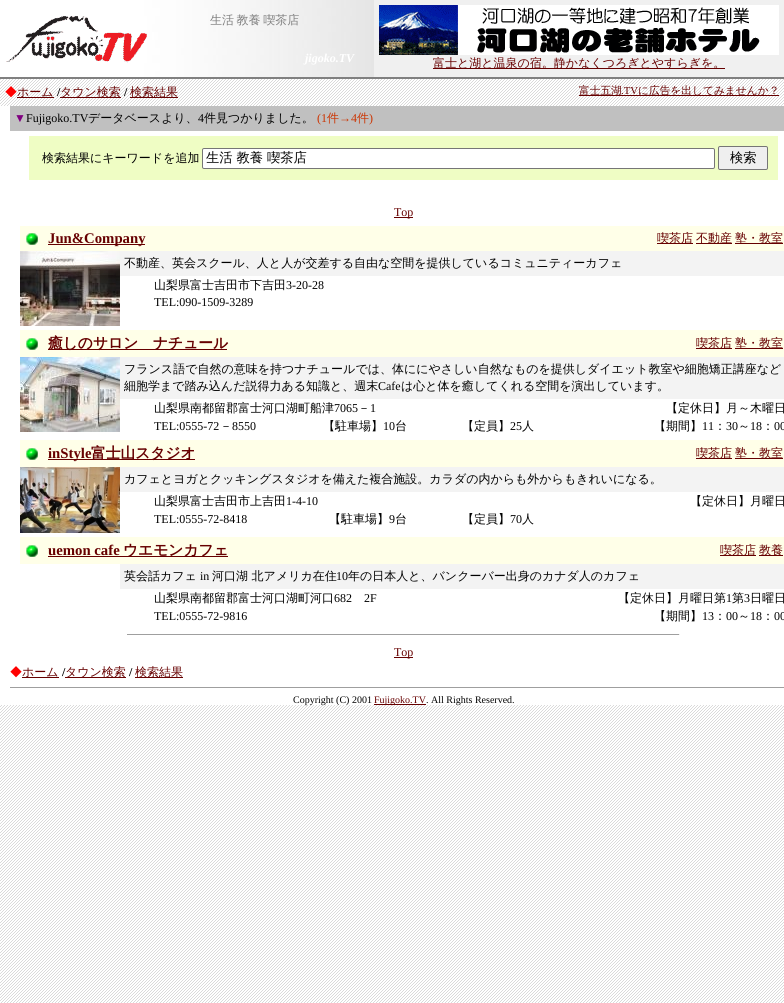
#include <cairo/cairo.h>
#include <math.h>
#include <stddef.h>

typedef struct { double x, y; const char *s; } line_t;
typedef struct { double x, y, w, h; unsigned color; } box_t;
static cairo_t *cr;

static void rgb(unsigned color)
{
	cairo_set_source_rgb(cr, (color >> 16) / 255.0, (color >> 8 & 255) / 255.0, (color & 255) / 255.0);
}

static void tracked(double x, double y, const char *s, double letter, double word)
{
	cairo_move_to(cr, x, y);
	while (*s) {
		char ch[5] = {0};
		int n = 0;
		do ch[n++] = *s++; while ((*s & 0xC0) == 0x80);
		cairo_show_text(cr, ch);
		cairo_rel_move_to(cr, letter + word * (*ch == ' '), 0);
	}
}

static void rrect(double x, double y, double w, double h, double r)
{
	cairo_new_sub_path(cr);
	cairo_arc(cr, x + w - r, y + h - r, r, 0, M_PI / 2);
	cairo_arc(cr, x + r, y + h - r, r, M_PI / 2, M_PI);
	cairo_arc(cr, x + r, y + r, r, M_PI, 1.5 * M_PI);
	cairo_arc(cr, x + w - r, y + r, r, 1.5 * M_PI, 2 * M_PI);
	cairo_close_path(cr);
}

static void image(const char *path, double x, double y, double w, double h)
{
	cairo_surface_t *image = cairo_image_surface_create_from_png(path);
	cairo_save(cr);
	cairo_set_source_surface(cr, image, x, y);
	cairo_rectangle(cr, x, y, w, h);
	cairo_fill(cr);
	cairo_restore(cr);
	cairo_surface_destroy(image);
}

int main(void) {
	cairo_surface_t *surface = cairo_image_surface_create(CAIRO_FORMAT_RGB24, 784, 1003);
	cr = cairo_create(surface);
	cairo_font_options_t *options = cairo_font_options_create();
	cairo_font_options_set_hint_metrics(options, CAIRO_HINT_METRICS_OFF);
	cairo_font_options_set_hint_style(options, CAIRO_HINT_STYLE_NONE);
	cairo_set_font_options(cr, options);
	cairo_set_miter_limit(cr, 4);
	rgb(0xffffff);
	cairo_paint(cr);
	image("img/1.png", 0, 79, 784, 924);
	image("img/2.png", 0, 0, 374, 77);
	image("img/3.png", 6, 16, 141, 47);
	rgb(0xf0f0f0);
	cairo_rectangle(cr, 374, 0, 410, 77);
	cairo_fill(cr);
	image("img/4.png", 379, 5, 400, 50);
	{
		static const box_t items[] = {
			{433, 68, 292, 1, 0x660000},
			{0, 77, 784, 2, 0x808080},
			{17, 97, 37, 1, 0x660000},
			{60, 97, 61, 1, 0x660000},
			{130, 97, 48, 1, 0x660000},
			{579, 95, 200, 1, 0x660000},
			{0, 106, 10, 599, 0xffffff},
			{10, 131, 774, 574, 0xffffff},
			{10, 106, 774, 25, 0xc0c0c0},
			{29, 136, 749, 44, 0xeffdc4},
		};
		for (size_t i = 0; i < sizeof items / sizeof *items; i++) {
			rgb(items[i].color);
			cairo_rectangle(cr, items[i].x, items[i].y, items[i].w, items[i].h);
			cairo_fill(cr);
		}
	}
	rgb(0xffffff);
	rrect(202.5, 148.5, 512, 20, 1.5);
	cairo_fill_preserve(cr);
	rgb(0x767676);
	cairo_set_line_width(cr, 1);
	cairo_stroke(cr);
	rgb(0xefefef);
	rrect(718.5, 146.5, 49, 23, 1.5);
	cairo_fill_preserve(cr);
	rgb(0x767676);
	cairo_stroke(cr);
	rgb(0x660000);
	cairo_rectangle(cr, 394, 217, 19, 1);
	cairo_fill(cr);
	rgb(0xffffe8);
	cairo_rectangle(cr, 20, 226, 764, 25);
	cairo_fill(cr);
	image("img/5.png", 26, 233, 12, 12);
	{
		static const box_t items[] = {
			{48, 244, 97, 1, 0x660000},
			{657, 243, 36, 1, 0x660000},
			{696, 243, 36, 1, 0x660000},
			{735, 243, 48, 1, 0x660000},
		};
		for (size_t i = 0; i < sizeof items / sizeof *items; i++) {
			rgb(items[i].color);
			cairo_rectangle(cr, items[i].x, items[i].y, items[i].w, items[i].h);
			cairo_fill(cr);
		}
	}
	image("img/6.png", 20, 251, 100, 75);
	rgb(0xf3f3f3);
	cairo_rectangle(cr, 120, 251, 664, 25);
	cairo_fill(cr);
	rgb(0xffffe8);
	cairo_rectangle(cr, 20, 330, 764, 27);
	cairo_fill(cr);
	image("img/5.png", 26, 338, 12, 12);
	{
		static const box_t items[] = {
			{48, 349, 179, 1, 0x660000},
			{696, 348, 36, 1, 0x660000},
			{735, 348, 48, 1, 0x660000},
		};
		for (size_t i = 0; i < sizeof items / sizeof *items; i++) {
			rgb(items[i].color);
			cairo_rectangle(cr, items[i].x, items[i].y, items[i].w, items[i].h);
			cairo_fill(cr);
		}
	}
	image("img/7.png", 20, 357, 100, 75);
	rgb(0xf3f3f3);
	cairo_rectangle(cr, 120, 357, 664, 42);
	cairo_fill(cr);
	rgb(0xffffe8);
	cairo_rectangle(cr, 20, 440, 764, 27);
	cairo_fill(cr);
	image("img/5.png", 26, 448, 12, 12);
	{
		static const box_t items[] = {
			{48, 459, 147, 1, 0x660000},
			{696, 458, 36, 1, 0x660000},
			{735, 458, 48, 1, 0x660000},
		};
		for (size_t i = 0; i < sizeof items / sizeof *items; i++) {
			rgb(items[i].color);
			cairo_rectangle(cr, items[i].x, items[i].y, items[i].w, items[i].h);
			cairo_fill(cr);
		}
	}
	image("img/8.png", 20, 467, 100, 66);
	rgb(0xf3f3f3);
	cairo_rectangle(cr, 120, 467, 664, 25);
	cairo_fill(cr);
	rgb(0xffffe8);
	cairo_rectangle(cr, 20, 537, 764, 27);
	cairo_fill(cr);
	image("img/9.png", 26, 545, 12, 12);
	{
		static const box_t items[] = {
			{48, 556, 180, 1, 0x660000},
			{720, 555, 36, 1, 0x660000},
			{759, 555, 24, 1, 0x660000},
			{120, 564, 664, 25, 0xf3f3f3},
			{127, 634, 553, 1, 0x9f9f9f},
			{679, 634, 1, 1, 0xeeeeee},
			{394, 657, 19, 1, 0x660000},
			{22, 677, 37, 1, 0x660000},
			{65, 677, 61, 1, 0x660000},
			{135, 677, 48, 1, 0x660000},
			{10, 687, 774, 1, 0x9f9f9f},
			{374, 704, 52, 1, 0x660000},
		};
		for (size_t i = 0; i < sizeof items / sizeof *items; i++) {
			rgb(items[i].color);
			cairo_rectangle(cr, items[i].x, items[i].y, items[i].w, items[i].h);
			cairo_fill(cr);
		}
	}
	cairo_select_font_face(cr, "WenQuanYi Zen Hei Medium", CAIRO_FONT_SLANT_NORMAL, CAIRO_FONT_WEIGHT_NORMAL);
	cairo_set_font_size(cr, 12);
	rgb(0x808080);
	tracked(210, 24, "生活 教養 喫茶店", 0, -1);
	rgb(0x660000);
	cairo_move_to(cr, 433, 67);
	cairo_show_text(cr, "富士と湖と温泉の宿。静かなくつろぎとやすらぎを。");
	cairo_select_font_face(cr, "Liberation Serif", CAIRO_FONT_SLANT_ITALIC, CAIRO_FONT_WEIGHT_BOLD);
	rgb(0xffffff);
	cairo_move_to(cr, 305, 62);
	cairo_show_text(cr, "jigoko.TV");
	cairo_select_font_face(cr, "WenQuanYi Zen Hei Medium", CAIRO_FONT_SLANT_NORMAL, CAIRO_FONT_WEIGHT_NORMAL);
	rgb(0xff0000);
	cairo_move_to(cr, 5, 96);
	cairo_show_text(cr, "◆");
	rgb(0x660000);
	cairo_move_to(cr, 17, 96);
	cairo_show_text(cr, "ホーム");
	cairo_select_font_face(cr, "Liberation Serif", CAIRO_FONT_SLANT_NORMAL, CAIRO_FONT_WEIGHT_BOLD);
	rgb(0x000000);
	cairo_move_to(cr, 57, 96);
	cairo_show_text(cr, "/");
	cairo_select_font_face(cr, "WenQuanYi Zen Hei Medium", CAIRO_FONT_SLANT_NORMAL, CAIRO_FONT_WEIGHT_NORMAL);
	rgb(0x660000);
	cairo_move_to(cr, 60, 96);
	cairo_show_text(cr, "タウン検索");
	cairo_select_font_face(cr, "Liberation Serif", CAIRO_FONT_SLANT_NORMAL, CAIRO_FONT_WEIGHT_BOLD);
	rgb(0x000000);
	cairo_move_to(cr, 124, 96);
	cairo_show_text(cr, "/");
	cairo_select_font_face(cr, "WenQuanYi Zen Hei Medium", CAIRO_FONT_SLANT_NORMAL, CAIRO_FONT_WEIGHT_NORMAL);
	rgb(0x660000);
	cairo_move_to(cr, 130, 96);
	cairo_show_text(cr, "検索結果");
	cairo_set_font_size(cr, 10.7);
	cairo_move_to(cr, 579, 94);
	cairo_show_text(cr, "富士五湖");
	cairo_select_font_face(cr, "Liberation Serif", CAIRO_FONT_SLANT_NORMAL, CAIRO_FONT_WEIGHT_NORMAL);
	cairo_move_to(cr, 621, 94);
	cairo_show_text(cr, ".TV");
	cairo_select_font_face(cr, "WenQuanYi Zen Hei Medium", CAIRO_FONT_SLANT_NORMAL, CAIRO_FONT_WEIGHT_NORMAL);
	cairo_move_to(cr, 638, 94);
	cairo_show_text(cr, "に広告を出してみませんか？");
	cairo_select_font_face(cr, "Liberation Serif", CAIRO_FONT_SLANT_NORMAL, CAIRO_FONT_WEIGHT_NORMAL);
	cairo_set_font_size(cr, 12);
	rgb(0x800080);
	cairo_move_to(cr, 14, 122);
	cairo_show_text(cr, "▼");
	rgb(0x000000);
	cairo_move_to(cr, 26, 122);
	cairo_show_text(cr, "Fujigoko.TV");
	cairo_select_font_face(cr, "WenQuanYi Zen Hei Medium", CAIRO_FONT_SLANT_NORMAL, CAIRO_FONT_WEIGHT_NORMAL);
	cairo_move_to(cr, 88, 122);
	cairo_show_text(cr, "データベースより、");
	cairo_select_font_face(cr, "Liberation Serif", CAIRO_FONT_SLANT_NORMAL, CAIRO_FONT_WEIGHT_NORMAL);
	cairo_move_to(cr, 198, 122);
	cairo_show_text(cr, "4");
	cairo_select_font_face(cr, "WenQuanYi Zen Hei Medium", CAIRO_FONT_SLANT_NORMAL, CAIRO_FONT_WEIGHT_NORMAL);
	cairo_move_to(cr, 204, 122);
	cairo_show_text(cr, "件見つかりました。");
	cairo_select_font_face(cr, "Liberation Serif", CAIRO_FONT_SLANT_NORMAL, CAIRO_FONT_WEIGHT_NORMAL);
	rgb(0xcc3300);
	cairo_move_to(cr, 317, 122);
	cairo_show_text(cr, "(1");
	cairo_select_font_face(cr, "WenQuanYi Zen Hei Medium", CAIRO_FONT_SLANT_NORMAL, CAIRO_FONT_WEIGHT_NORMAL);
	cairo_move_to(cr, 327, 122);
	cairo_show_text(cr, "件");
	cairo_select_font_face(cr, "Liberation Serif", CAIRO_FONT_SLANT_NORMAL, CAIRO_FONT_WEIGHT_NORMAL);
	cairo_move_to(cr, 339, 122);
	cairo_show_text(cr, "→4");
	cairo_select_font_face(cr, "WenQuanYi Zen Hei Medium", CAIRO_FONT_SLANT_NORMAL, CAIRO_FONT_WEIGHT_NORMAL);
	cairo_move_to(cr, 357, 122);
	cairo_show_text(cr, "件");
	cairo_select_font_face(cr, "Liberation Serif", CAIRO_FONT_SLANT_NORMAL, CAIRO_FONT_WEIGHT_NORMAL);
	cairo_move_to(cr, 369, 122);
	cairo_show_text(cr, ")");
	cairo_select_font_face(cr, "WenQuanYi Zen Hei Medium", CAIRO_FONT_SLANT_NORMAL, CAIRO_FONT_WEIGHT_NORMAL);
	rgb(0x000000);
	cairo_move_to(cr, 42, 162);
	cairo_show_text(cr, "検索結果にキーワードを追加");
	cairo_set_font_size(cr, 13.25);
	cairo_move_to(cr, 206, 162);
	cairo_show_text(cr, "生活 教養 喫茶店");
	cairo_move_to(cr, 730, 162);
	cairo_show_text(cr, "検索");
	cairo_select_font_face(cr, "Liberation Serif", CAIRO_FONT_SLANT_NORMAL, CAIRO_FONT_WEIGHT_NORMAL);
	cairo_set_font_size(cr, 12);
	rgb(0x660000);
	cairo_move_to(cr, 394, 216);
	cairo_show_text(cr, "Top");
	cairo_select_font_face(cr, "Liberation Serif", CAIRO_FONT_SLANT_NORMAL, CAIRO_FONT_WEIGHT_BOLD);
	cairo_set_font_size(cr, 14.75);
	cairo_move_to(cr, 48, 243);
	cairo_show_text(cr, "Jun&Company");
	cairo_select_font_face(cr, "WenQuanYi Zen Hei Medium", CAIRO_FONT_SLANT_NORMAL, CAIRO_FONT_WEIGHT_NORMAL);
	cairo_set_font_size(cr, 12);
	{
		static const line_t items[] = {
			{657, 242, "喫茶店"},
			{696, 242, "不動産"},
			{735, 242, "塾・教室"},
		};
		for (size_t i = 0; i < sizeof items / sizeof *items; i++) {
			cairo_move_to(cr, items[i].x, items[i].y);
			cairo_show_text(cr, items[i].s);
		}
	}
	rgb(0x000000);
	cairo_move_to(cr, 124, 267);
	cairo_show_text(cr, "不動産、英会スクール、人と人が交差する自由な空間を提供しているコミュニティーカフェ");
	cairo_move_to(cr, 154, 289);
	cairo_show_text(cr, "山梨県富士吉田市下吉田");
	cairo_select_font_face(cr, "Liberation Serif", CAIRO_FONT_SLANT_NORMAL, CAIRO_FONT_WEIGHT_NORMAL);
	cairo_move_to(cr, 286, 289);
	cairo_show_text(cr, "3-20-28");
	cairo_move_to(cr, 154, 306);
	cairo_show_text(cr, "TEL:090-1509-3289");
	cairo_select_font_face(cr, "WenQuanYi Zen Hei", CAIRO_FONT_SLANT_NORMAL, CAIRO_FONT_WEIGHT_BOLD);
	cairo_set_font_size(cr, 14.75);
	rgb(0x660000);
	cairo_move_to(cr, 48, 348);
	cairo_show_text(cr, "癒しのサロン　ナチュール");
	cairo_select_font_face(cr, "WenQuanYi Zen Hei Medium", CAIRO_FONT_SLANT_NORMAL, CAIRO_FONT_WEIGHT_NORMAL);
	cairo_set_font_size(cr, 12);
	cairo_move_to(cr, 696, 347);
	cairo_show_text(cr, "喫茶店");
	cairo_move_to(cr, 735, 347);
	cairo_show_text(cr, "塾・教室");
	rgb(0x000000);
	cairo_move_to(cr, 124, 373);
	cairo_show_text(cr, "フランス語で自然の意味を持つナチュールでは、体ににやさしい自然なものを提供しダイエット教室や細胞矯正講座など");
	cairo_move_to(cr, 124, 390);
	cairo_show_text(cr, "細胞学まで踏み込んだ説得力ある知識と、週末");
	cairo_select_font_face(cr, "Liberation Serif", CAIRO_FONT_SLANT_NORMAL, CAIRO_FONT_WEIGHT_NORMAL);
	cairo_move_to(cr, 378, 390);
	cairo_show_text(cr, "Cafe");
	cairo_select_font_face(cr, "WenQuanYi Zen Hei Medium", CAIRO_FONT_SLANT_NORMAL, CAIRO_FONT_WEIGHT_NORMAL);
	cairo_move_to(cr, 401, 390);
	cairo_show_text(cr, "は心と体を癒してくれる空間を演出しています。");
	cairo_move_to(cr, 154, 412);
	cairo_show_text(cr, "山梨県南都留郡富士河口湖町船津");
	cairo_select_font_face(cr, "Liberation Serif", CAIRO_FONT_SLANT_NORMAL, CAIRO_FONT_WEIGHT_NORMAL);
	cairo_move_to(cr, 334, 412);
	cairo_show_text(cr, "7065");
	cairo_select_font_face(cr, "WenQuanYi Zen Hei Medium", CAIRO_FONT_SLANT_NORMAL, CAIRO_FONT_WEIGHT_NORMAL);
	cairo_move_to(cr, 358, 412);
	cairo_show_text(cr, "－");
	cairo_select_font_face(cr, "Liberation Serif", CAIRO_FONT_SLANT_NORMAL, CAIRO_FONT_WEIGHT_NORMAL);
	cairo_move_to(cr, 370, 412);
	cairo_show_text(cr, "1");
	cairo_select_font_face(cr, "WenQuanYi Zen Hei Medium", CAIRO_FONT_SLANT_NORMAL, CAIRO_FONT_WEIGHT_NORMAL);
	cairo_move_to(cr, 666, 412);
	cairo_show_text(cr, "【定休日】月～木曜日");
	cairo_select_font_face(cr, "Liberation Serif", CAIRO_FONT_SLANT_NORMAL, CAIRO_FONT_WEIGHT_NORMAL);
	cairo_move_to(cr, 154, 430);
	cairo_show_text(cr, "TEL:0555-72");
	cairo_select_font_face(cr, "WenQuanYi Zen Hei Medium", CAIRO_FONT_SLANT_NORMAL, CAIRO_FONT_WEIGHT_NORMAL);
	cairo_move_to(cr, 220, 430);
	cairo_show_text(cr, "－");
	cairo_select_font_face(cr, "Liberation Serif", CAIRO_FONT_SLANT_NORMAL, CAIRO_FONT_WEIGHT_NORMAL);
	cairo_move_to(cr, 232, 430);
	cairo_show_text(cr, "8550");
	cairo_select_font_face(cr, "WenQuanYi Zen Hei Medium", CAIRO_FONT_SLANT_NORMAL, CAIRO_FONT_WEIGHT_NORMAL);
	cairo_move_to(cr, 323, 430);
	cairo_show_text(cr, "【駐車場】");
	cairo_select_font_face(cr, "Liberation Serif", CAIRO_FONT_SLANT_NORMAL, CAIRO_FONT_WEIGHT_NORMAL);
	cairo_move_to(cr, 383, 430);
	cairo_show_text(cr, "10");
	cairo_select_font_face(cr, "WenQuanYi Zen Hei Medium", CAIRO_FONT_SLANT_NORMAL, CAIRO_FONT_WEIGHT_NORMAL);
	cairo_move_to(cr, 395, 430);
	cairo_show_text(cr, "台");
	cairo_move_to(cr, 462, 430);
	cairo_show_text(cr, "【定員】");
	cairo_select_font_face(cr, "Liberation Serif", CAIRO_FONT_SLANT_NORMAL, CAIRO_FONT_WEIGHT_NORMAL);
	cairo_move_to(cr, 510, 430);
	cairo_show_text(cr, "25");
	cairo_select_font_face(cr, "WenQuanYi Zen Hei Medium", CAIRO_FONT_SLANT_NORMAL, CAIRO_FONT_WEIGHT_NORMAL);
	cairo_move_to(cr, 522, 430);
	cairo_show_text(cr, "人");
	cairo_move_to(cr, 654, 430);
	cairo_show_text(cr, "【期間】");
	cairo_select_font_face(cr, "Liberation Serif", CAIRO_FONT_SLANT_NORMAL, CAIRO_FONT_WEIGHT_NORMAL);
	cairo_move_to(cr, 702, 430);
	cairo_show_text(cr, "11");
	cairo_select_font_face(cr, "WenQuanYi Zen Hei Medium", CAIRO_FONT_SLANT_NORMAL, CAIRO_FONT_WEIGHT_NORMAL);
	cairo_move_to(cr, 714, 430);
	cairo_show_text(cr, "：");
	cairo_select_font_face(cr, "Liberation Serif", CAIRO_FONT_SLANT_NORMAL, CAIRO_FONT_WEIGHT_NORMAL);
	cairo_move_to(cr, 726, 430);
	cairo_show_text(cr, "30");
	cairo_select_font_face(cr, "WenQuanYi Zen Hei Medium", CAIRO_FONT_SLANT_NORMAL, CAIRO_FONT_WEIGHT_NORMAL);
	cairo_move_to(cr, 738, 430);
	cairo_show_text(cr, "～");
	cairo_select_font_face(cr, "Liberation Serif", CAIRO_FONT_SLANT_NORMAL, CAIRO_FONT_WEIGHT_NORMAL);
	cairo_move_to(cr, 750, 430);
	cairo_show_text(cr, "18");
	cairo_select_font_face(cr, "WenQuanYi Zen Hei Medium", CAIRO_FONT_SLANT_NORMAL, CAIRO_FONT_WEIGHT_NORMAL);
	cairo_move_to(cr, 762, 430);
	cairo_show_text(cr, "：");
	cairo_select_font_face(cr, "Liberation Serif", CAIRO_FONT_SLANT_NORMAL, CAIRO_FONT_WEIGHT_NORMAL);
	cairo_move_to(cr, 774, 430);
	cairo_show_text(cr, "00");
	cairo_select_font_face(cr, "Liberation Serif", CAIRO_FONT_SLANT_NORMAL, CAIRO_FONT_WEIGHT_BOLD);
	cairo_set_font_size(cr, 14.75);
	rgb(0x660000);
	cairo_move_to(cr, 48, 458);
	cairo_show_text(cr, "inStyle");
	cairo_select_font_face(cr, "WenQuanYi Zen Hei", CAIRO_FONT_SLANT_NORMAL, CAIRO_FONT_WEIGHT_BOLD);
	cairo_move_to(cr, 91, 458);
	cairo_show_text(cr, "富士山スタジオ");
	cairo_select_font_face(cr, "WenQuanYi Zen Hei Medium", CAIRO_FONT_SLANT_NORMAL, CAIRO_FONT_WEIGHT_NORMAL);
	cairo_set_font_size(cr, 12);
	cairo_move_to(cr, 696, 457);
	cairo_show_text(cr, "喫茶店");
	cairo_move_to(cr, 735, 457);
	cairo_show_text(cr, "塾・教室");
	rgb(0x000000);
	cairo_move_to(cr, 124, 483);
	cairo_show_text(cr, "カフェとヨガとクッキングスタジオを備えた複合施設。カラダの内からも外からもきれいになる。");
	cairo_move_to(cr, 154, 505);
	cairo_show_text(cr, "山梨県富士吉田市上吉田");
	cairo_select_font_face(cr, "Liberation Serif", CAIRO_FONT_SLANT_NORMAL, CAIRO_FONT_WEIGHT_NORMAL);
	cairo_move_to(cr, 286, 505);
	cairo_show_text(cr, "1-4-10");
	cairo_select_font_face(cr, "WenQuanYi Zen Hei Medium", CAIRO_FONT_SLANT_NORMAL, CAIRO_FONT_WEIGHT_NORMAL);
	cairo_move_to(cr, 690, 505);
	cairo_show_text(cr, "【定休日】月曜日");
	cairo_select_font_face(cr, "Liberation Serif", CAIRO_FONT_SLANT_NORMAL, CAIRO_FONT_WEIGHT_NORMAL);
	cairo_move_to(cr, 154, 523);
	cairo_show_text(cr, "TEL:0555-72-8418");
	cairo_select_font_face(cr, "WenQuanYi Zen Hei Medium", CAIRO_FONT_SLANT_NORMAL, CAIRO_FONT_WEIGHT_NORMAL);
	cairo_move_to(cr, 329, 523);
	cairo_show_text(cr, "【駐車場】");
	cairo_select_font_face(cr, "Liberation Serif", CAIRO_FONT_SLANT_NORMAL, CAIRO_FONT_WEIGHT_NORMAL);
	cairo_move_to(cr, 389, 523);
	cairo_show_text(cr, "9");
	cairo_select_font_face(cr, "WenQuanYi Zen Hei Medium", CAIRO_FONT_SLANT_NORMAL, CAIRO_FONT_WEIGHT_NORMAL);
	cairo_move_to(cr, 395, 523);
	cairo_show_text(cr, "台");
	cairo_move_to(cr, 462, 523);
	cairo_show_text(cr, "【定員】");
	cairo_select_font_face(cr, "Liberation Serif", CAIRO_FONT_SLANT_NORMAL, CAIRO_FONT_WEIGHT_NORMAL);
	cairo_move_to(cr, 510, 523);
	cairo_show_text(cr, "70");
	cairo_select_font_face(cr, "WenQuanYi Zen Hei Medium", CAIRO_FONT_SLANT_NORMAL, CAIRO_FONT_WEIGHT_NORMAL);
	cairo_move_to(cr, 522, 523);
	cairo_show_text(cr, "人");
	cairo_select_font_face(cr, "Liberation Serif", CAIRO_FONT_SLANT_NORMAL, CAIRO_FONT_WEIGHT_BOLD);
	cairo_set_font_size(cr, 14.75);
	rgb(0x660000);
	cairo_move_to(cr, 48, 555);
	cairo_show_text(cr, "uemon cafe");
	cairo_select_font_face(cr, "WenQuanYi Zen Hei", CAIRO_FONT_SLANT_NORMAL, CAIRO_FONT_WEIGHT_BOLD);
	cairo_move_to(cr, 123, 555);
	cairo_show_text(cr, "ウエモンカフェ");
	cairo_select_font_face(cr, "WenQuanYi Zen Hei Medium", CAIRO_FONT_SLANT_NORMAL, CAIRO_FONT_WEIGHT_NORMAL);
	cairo_set_font_size(cr, 12);
	cairo_move_to(cr, 720, 554);
	cairo_show_text(cr, "喫茶店");
	cairo_move_to(cr, 759, 554);
	cairo_show_text(cr, "教養");
	rgb(0x000000);
	cairo_move_to(cr, 124, 580);
	cairo_show_text(cr, "英会話カフェ");
	cairo_select_font_face(cr, "Liberation Serif", CAIRO_FONT_SLANT_NORMAL, CAIRO_FONT_WEIGHT_NORMAL);
	cairo_move_to(cr, 200, 580);
	cairo_show_text(cr, "in");
	cairo_select_font_face(cr, "WenQuanYi Zen Hei Medium", CAIRO_FONT_SLANT_NORMAL, CAIRO_FONT_WEIGHT_NORMAL);
	cairo_move_to(cr, 212, 580);
	cairo_show_text(cr, "河口湖 北アメリカ在住");
	cairo_select_font_face(cr, "Liberation Serif", CAIRO_FONT_SLANT_NORMAL, CAIRO_FONT_WEIGHT_NORMAL);
	cairo_move_to(cr, 336, 580);
	cairo_show_text(cr, "10");
	cairo_select_font_face(cr, "WenQuanYi Zen Hei Medium", CAIRO_FONT_SLANT_NORMAL, CAIRO_FONT_WEIGHT_NORMAL);
	cairo_move_to(cr, 348, 580);
	cairo_show_text(cr, "年の日本人と、バンクーバー出身のカナダ人のカフェ");
	cairo_move_to(cr, 154, 602);
	cairo_show_text(cr, "山梨県南都留郡富士河口湖町河口");
	cairo_select_font_face(cr, "Liberation Serif", CAIRO_FONT_SLANT_NORMAL, CAIRO_FONT_WEIGHT_NORMAL);
	cairo_move_to(cr, 334, 602);
	cairo_show_text(cr, "682");
	cairo_move_to(cr, 364, 602);
	cairo_show_text(cr, "2F");
	cairo_select_font_face(cr, "WenQuanYi Zen Hei Medium", CAIRO_FONT_SLANT_NORMAL, CAIRO_FONT_WEIGHT_NORMAL);
	cairo_move_to(cr, 618, 602);
	cairo_show_text(cr, "【定休日】月曜日第");
	cairo_select_font_face(cr, "Liberation Serif", CAIRO_FONT_SLANT_NORMAL, CAIRO_FONT_WEIGHT_NORMAL);
	cairo_move_to(cr, 726, 602);
	cairo_show_text(cr, "1");
	cairo_select_font_face(cr, "WenQuanYi Zen Hei Medium", CAIRO_FONT_SLANT_NORMAL, CAIRO_FONT_WEIGHT_NORMAL);
	cairo_move_to(cr, 732, 602);
	cairo_show_text(cr, "第");
	cairo_select_font_face(cr, "Liberation Serif", CAIRO_FONT_SLANT_NORMAL, CAIRO_FONT_WEIGHT_NORMAL);
	cairo_move_to(cr, 744, 602);
	cairo_show_text(cr, "3");
	cairo_select_font_face(cr, "WenQuanYi Zen Hei Medium", CAIRO_FONT_SLANT_NORMAL, CAIRO_FONT_WEIGHT_NORMAL);
	cairo_move_to(cr, 750, 602);
	cairo_show_text(cr, "日曜日");
	cairo_select_font_face(cr, "Liberation Serif", CAIRO_FONT_SLANT_NORMAL, CAIRO_FONT_WEIGHT_NORMAL);
	cairo_move_to(cr, 154, 620);
	cairo_show_text(cr, "TEL:0555-72-9816");
	cairo_select_font_face(cr, "WenQuanYi Zen Hei Medium", CAIRO_FONT_SLANT_NORMAL, CAIRO_FONT_WEIGHT_NORMAL);
	cairo_move_to(cr, 654, 620);
	cairo_show_text(cr, "【期間】");
	cairo_select_font_face(cr, "Liberation Serif", CAIRO_FONT_SLANT_NORMAL, CAIRO_FONT_WEIGHT_NORMAL);
	cairo_move_to(cr, 702, 620);
	cairo_show_text(cr, "13");
	cairo_select_font_face(cr, "WenQuanYi Zen Hei Medium", CAIRO_FONT_SLANT_NORMAL, CAIRO_FONT_WEIGHT_NORMAL);
	cairo_move_to(cr, 714, 620);
	cairo_show_text(cr, "：");
	cairo_select_font_face(cr, "Liberation Serif", CAIRO_FONT_SLANT_NORMAL, CAIRO_FONT_WEIGHT_NORMAL);
	cairo_move_to(cr, 726, 620);
	cairo_show_text(cr, "00");
	cairo_select_font_face(cr, "WenQuanYi Zen Hei Medium", CAIRO_FONT_SLANT_NORMAL, CAIRO_FONT_WEIGHT_NORMAL);
	cairo_move_to(cr, 738, 620);
	cairo_show_text(cr, "～");
	cairo_select_font_face(cr, "Liberation Serif", CAIRO_FONT_SLANT_NORMAL, CAIRO_FONT_WEIGHT_NORMAL);
	cairo_move_to(cr, 750, 620);
	cairo_show_text(cr, "18");
	cairo_select_font_face(cr, "WenQuanYi Zen Hei Medium", CAIRO_FONT_SLANT_NORMAL, CAIRO_FONT_WEIGHT_NORMAL);
	cairo_move_to(cr, 762, 620);
	cairo_show_text(cr, "：");
	cairo_select_font_face(cr, "Liberation Serif", CAIRO_FONT_SLANT_NORMAL, CAIRO_FONT_WEIGHT_NORMAL);
	cairo_move_to(cr, 774, 620);
	cairo_show_text(cr, "00");
	rgb(0x660000);
	cairo_move_to(cr, 394, 656);
	cairo_show_text(cr, "Top");
	cairo_select_font_face(cr, "WenQuanYi Zen Hei Medium", CAIRO_FONT_SLANT_NORMAL, CAIRO_FONT_WEIGHT_NORMAL);
	rgb(0xff0000);
	cairo_move_to(cr, 10, 676);
	cairo_show_text(cr, "◆");
	rgb(0x660000);
	cairo_move_to(cr, 22, 676);
	cairo_show_text(cr, "ホーム");
	cairo_select_font_face(cr, "Liberation Serif", CAIRO_FONT_SLANT_NORMAL, CAIRO_FONT_WEIGHT_BOLD);
	rgb(0x000000);
	cairo_move_to(cr, 62, 676);
	cairo_show_text(cr, "/");
	cairo_select_font_face(cr, "WenQuanYi Zen Hei Medium", CAIRO_FONT_SLANT_NORMAL, CAIRO_FONT_WEIGHT_NORMAL);
	rgb(0x660000);
	cairo_move_to(cr, 65, 676);
	cairo_show_text(cr, "タウン検索");
	cairo_select_font_face(cr, "Liberation Serif", CAIRO_FONT_SLANT_NORMAL, CAIRO_FONT_WEIGHT_BOLD);
	rgb(0x000000);
	cairo_move_to(cr, 129, 676);
	cairo_show_text(cr, "/");
	cairo_select_font_face(cr, "WenQuanYi Zen Hei Medium", CAIRO_FONT_SLANT_NORMAL, CAIRO_FONT_WEIGHT_NORMAL);
	rgb(0x660000);
	cairo_move_to(cr, 135, 676);
	cairo_show_text(cr, "検索結果");
	cairo_select_font_face(cr, "Liberation Serif", CAIRO_FONT_SLANT_NORMAL, CAIRO_FONT_WEIGHT_NORMAL);
	cairo_set_font_size(cr, 10);
	rgb(0x000000);
	cairo_move_to(cr, 293, 703);
	cairo_show_text(cr, "Copyright (C) 2001");
	rgb(0x660000);
	cairo_move_to(cr, 374, 703);
	cairo_show_text(cr, "Fujigoko.TV");
	rgb(0x000000);
	cairo_move_to(cr, 426, 703);
	cairo_show_text(cr, ". All Rights Reserved.");
	cairo_surface_write_to_png(surface, "page.png");
	cairo_font_options_destroy(options);
	cairo_destroy(cr);
	cairo_surface_destroy(surface);
	return 0;
}
